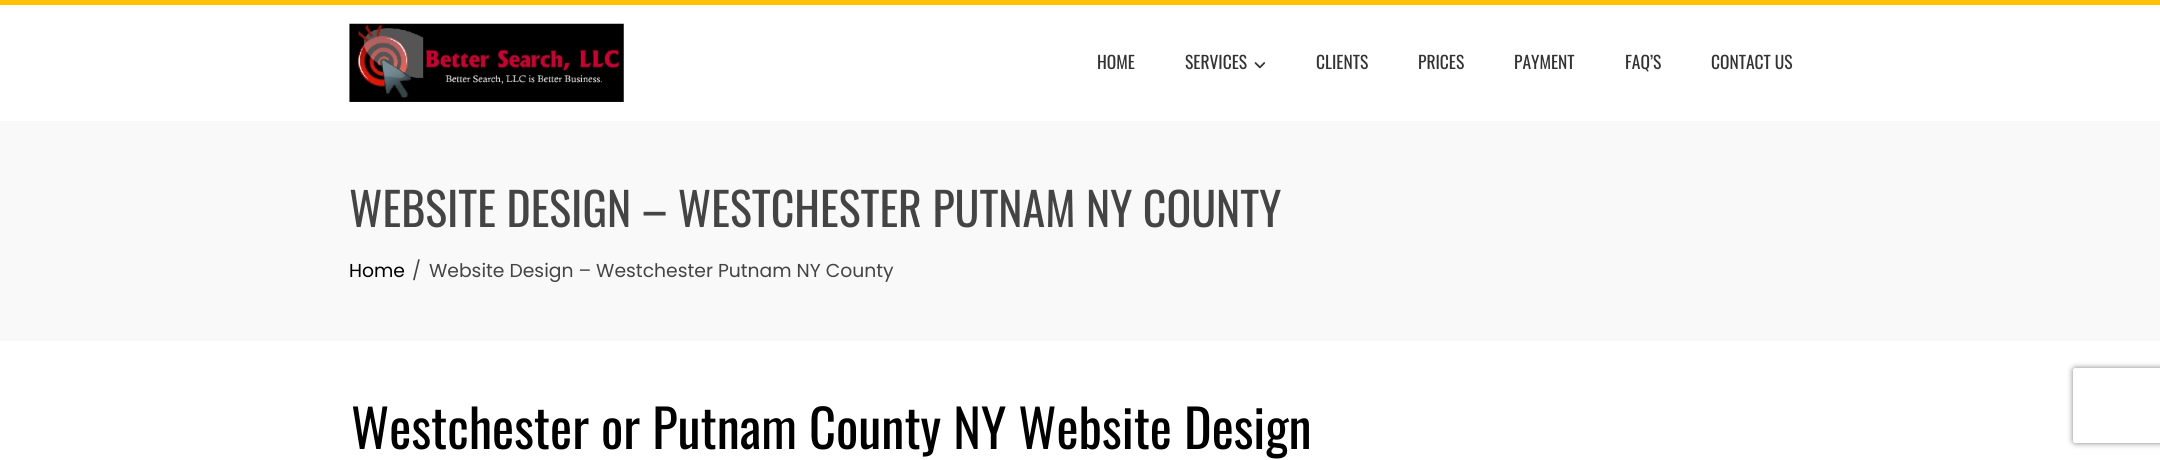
#include <cairo/cairo.h>
#include <math.h>
#include <stddef.h>

typedef struct { double x, y; const char *s; } line_t;
static cairo_t *cr;

static void rgb(unsigned color)
{
	cairo_set_source_rgb(cr, (color >> 16) / 255.0, (color >> 8 & 255) / 255.0, (color & 255) / 255.0);
}

static void rrect(double x, double y, double w, double h, double r)
{
	cairo_new_sub_path(cr);
	cairo_arc(cr, x + w - r, y + h - r, r, 0, M_PI / 2);
	cairo_arc(cr, x + r, y + h - r, r, M_PI / 2, M_PI);
	cairo_arc(cr, x + r, y + r, r, M_PI, 1.5 * M_PI);
	cairo_arc(cr, x + w - r, y + r, r, 1.5 * M_PI, 2 * M_PI);
	cairo_close_path(cr);
}

static void soft_shadow(double x, double y, double w, double h, double r, double blur, double alpha)
{
	cairo_push_group_with_content(cr, CAIRO_CONTENT_ALPHA);
	cairo_set_operator(cr, CAIRO_OPERATOR_SOURCE);
	for (int i = 15; i >= -15 && fmin(w, h) + blur * i / 3 > 0; i -= 2) {
		double e = blur * i / 6;
		cairo_set_source_rgba(cr, 0, 0, 0, alpha * erfc((i - 1) / 8.5) / 2);
		rrect(x - e, y - e, w + 2 * e, h + 2 * e, fmax(0, fmin(r + e + blur * .6, fmin(w, h) / 2 + e)));
		cairo_fill(cr);
	}
	cairo_pattern_t *soft = cairo_pop_group(cr);
	cairo_mask(cr, soft);
	cairo_pattern_destroy(soft);
}

static void image(const char *path, double x, double y, double w, double h)
{
	cairo_surface_t *image = cairo_image_surface_create_from_png(path);
	cairo_save(cr);
	cairo_set_source_surface(cr, image, x, y);
	cairo_rectangle(cr, x, y, w, h);
	cairo_fill(cr);
	cairo_restore(cr);
	cairo_surface_destroy(image);
}

int main(void) {
	cairo_surface_t *surface = cairo_image_surface_create(CAIRO_FORMAT_RGB24, 2160, 460);
	cr = cairo_create(surface);
	cairo_font_options_t *options = cairo_font_options_create();
	cairo_font_options_set_hint_metrics(options, CAIRO_HINT_METRICS_OFF);
	cairo_font_options_set_hint_style(options, CAIRO_HINT_STYLE_NONE);
	cairo_set_font_options(cr, options);
	cairo_set_miter_limit(cr, 4);
	rgb(0xffffff);
	cairo_paint(cr);
	rgb(0xffc107);
	cairo_rectangle(cr, 0, 0, 2160, 5);
	cairo_fill(cr);
	image("img/1.png", 349, 23, 275, 79);
	image("img/2.png", 1254, 62, 11, 7);
	rgb(0xf9f9f9);
	cairo_rectangle(cr, 0, 121, 2160, 220);
	cairo_fill(cr);
	cairo_save(cr);
	cairo_set_fill_rule(cr, CAIRO_FILL_RULE_EVEN_ODD);
	cairo_new_path(cr);
	cairo_move_to(cr, 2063, 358);
	cairo_line_to(cr, 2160, 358);
	cairo_line_to(cr, 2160, 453);
	cairo_line_to(cr, 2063, 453);
	cairo_close_path(cr);
	cairo_move_to(cr, 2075.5, 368);
	cairo_line_to(cr, 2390.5, 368);
	cairo_curve_to(cr, 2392, 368, 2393, 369, 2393, 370.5);
	cairo_line_to(cr, 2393, 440.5);
	cairo_curve_to(cr, 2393, 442, 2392, 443, 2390.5, 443);
	cairo_line_to(cr, 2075.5, 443);
	cairo_curve_to(cr, 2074, 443, 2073, 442, 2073, 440.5);
	cairo_line_to(cr, 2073, 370.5);
	cairo_curve_to(cr, 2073, 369, 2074, 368, 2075.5, 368);
	cairo_close_path(cr);
	cairo_clip(cr);
	rgb(0x808080);
	soft_shadow(2073, 368, 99, 75, 2.5, 3, 1);
	cairo_restore(cr);
	cairo_select_font_face(cr, "Oswald", CAIRO_FONT_SLANT_NORMAL, CAIRO_FONT_WEIGHT_NORMAL);
	cairo_set_font_size(cr, 17.5);
	rgb(0x333333);
	{
		static const line_t items[] = {
			{1097, 69, "HOME"},
			{1185, 69, "SERVICES"},
			{1316, 69, "CLIENTS"},
			{1418, 69, "PRICES"},
			{1514, 69, "PAYMENT"},
			{1625, 69, "FAQ’S"},
			{1711, 69, "CONTACT US"},
		};
		for (size_t i = 0; i < sizeof items / sizeof *items; i++) {
			cairo_move_to(cr, items[i].x, items[i].y);
			cairo_show_text(cr, items[i].s);
		}
	}
	cairo_set_font_size(cr, 45.9);
	rgb(0x444444);
	cairo_move_to(cr, 349, 227);
	cairo_show_text(cr, "WEBSITE DESIGN – WESTCHESTER PUTNAM NY COUNTY");
	cairo_select_font_face(cr, "Poppins", CAIRO_FONT_SLANT_NORMAL, CAIRO_FONT_WEIGHT_NORMAL);
	cairo_set_font_size(cr, 18.75);
	rgb(0x000000);
	cairo_move_to(cr, 349, 277);
	cairo_show_text(cr, "Home");
	rgb(0x444444);
	cairo_move_to(cr, 412, 277);
	cairo_show_text(cr, "/");
	cairo_move_to(cr, 429, 277);
	cairo_show_text(cr, "Website Design – Westchester Putnam NY County");
	cairo_select_font_face(cr, "Oswald", CAIRO_FONT_SLANT_NORMAL, CAIRO_FONT_WEIGHT_NORMAL);
	cairo_set_font_size(cr, 52.5);
	rgb(0x000000);
	cairo_move_to(cr, 351, 449);
	cairo_show_text(cr, "Westchester or Putnam County NY Website Design");
	cairo_surface_write_to_png(surface, "page.png");
	cairo_font_options_destroy(options);
	cairo_destroy(cr);
	cairo_surface_destroy(surface);
	return 0;
}
